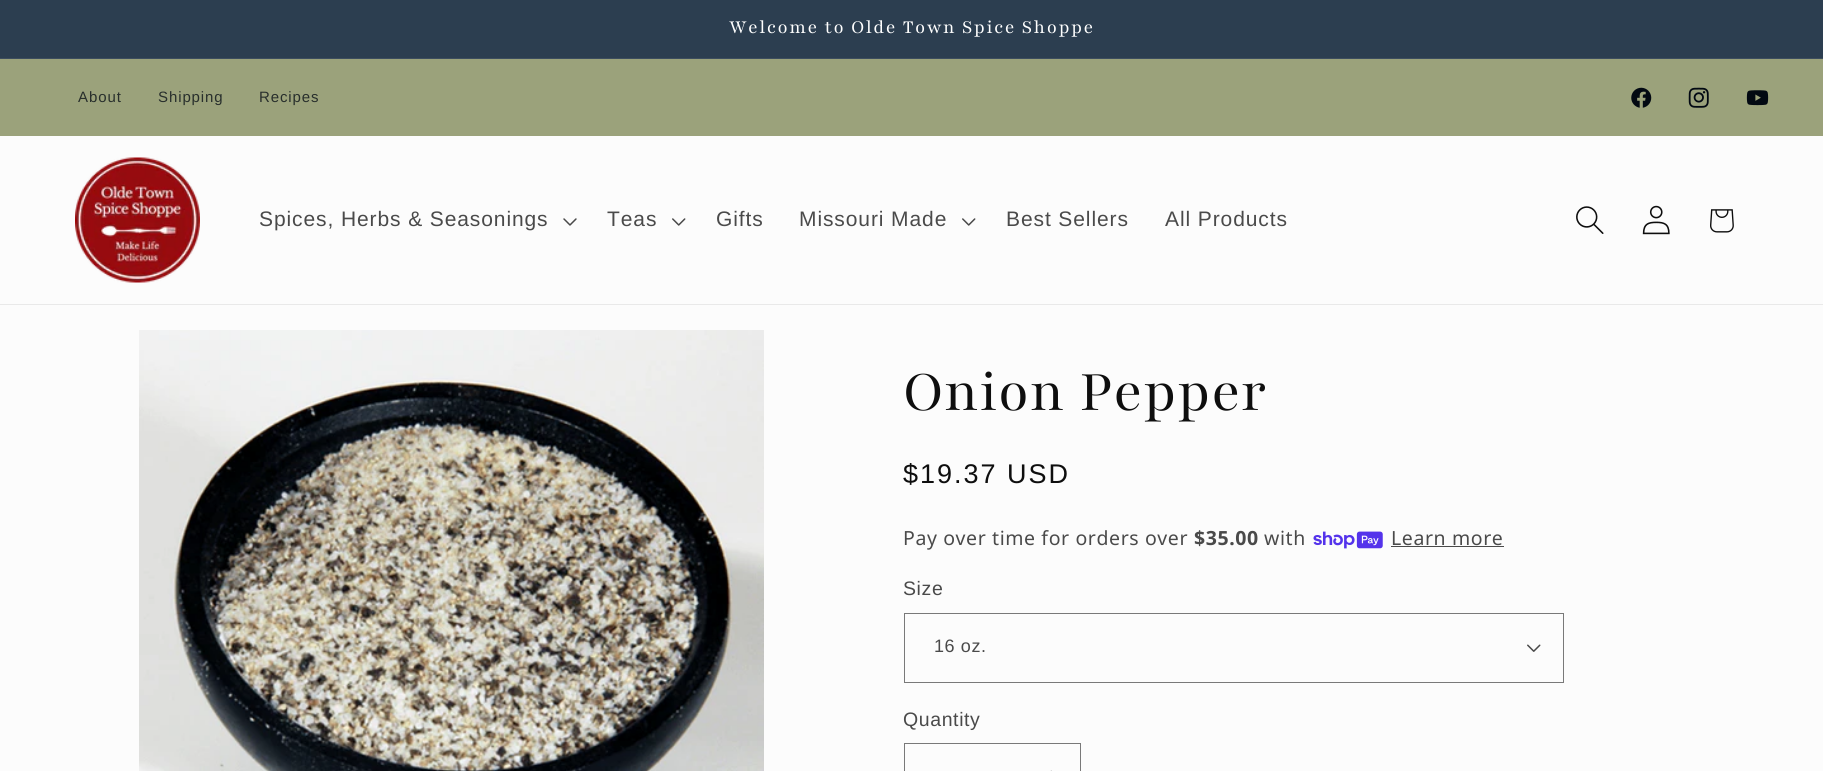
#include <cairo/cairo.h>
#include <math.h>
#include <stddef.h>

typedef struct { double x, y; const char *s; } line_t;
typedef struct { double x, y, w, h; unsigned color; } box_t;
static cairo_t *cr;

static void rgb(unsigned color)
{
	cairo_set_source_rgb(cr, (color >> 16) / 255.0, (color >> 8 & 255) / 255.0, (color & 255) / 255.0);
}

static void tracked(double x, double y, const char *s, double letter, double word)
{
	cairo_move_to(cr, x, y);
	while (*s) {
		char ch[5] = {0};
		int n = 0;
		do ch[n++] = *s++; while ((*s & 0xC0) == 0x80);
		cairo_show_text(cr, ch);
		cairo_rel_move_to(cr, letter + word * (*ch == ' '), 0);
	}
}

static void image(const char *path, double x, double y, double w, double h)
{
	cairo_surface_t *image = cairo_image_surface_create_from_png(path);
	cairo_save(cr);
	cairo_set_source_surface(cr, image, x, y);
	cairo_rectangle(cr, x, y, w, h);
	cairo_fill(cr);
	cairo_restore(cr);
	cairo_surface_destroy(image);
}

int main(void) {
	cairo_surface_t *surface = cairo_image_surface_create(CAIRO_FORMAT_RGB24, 1823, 771);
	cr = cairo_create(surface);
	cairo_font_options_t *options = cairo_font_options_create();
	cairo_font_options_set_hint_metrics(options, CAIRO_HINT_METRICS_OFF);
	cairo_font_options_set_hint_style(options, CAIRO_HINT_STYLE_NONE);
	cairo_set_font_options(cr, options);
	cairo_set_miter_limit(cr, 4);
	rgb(0xfcfcfc);
	cairo_paint(cr);
	{
		static const box_t items[] = {
			{0, 0, 1823, 58, 0x2c3e50},
			{0, 58, 1823, 1, 0x3d4d5e},
			{0, 59, 1823, 77, 0x9ba27b},
		};
		for (size_t i = 0; i < sizeof items / sizeof *items; i++) {
			rgb(items[i].color);
			cairo_rectangle(cr, items[i].x, items[i].y, items[i].w, items[i].h);
			cairo_fill(cr);
		}
	}
	image("img/1.png", 1631, 87, 21, 21);
	image("img/2.png", 1688, 87, 21, 21);
	image("img/3.png", 1746, 90, 23, 16);
	rgb(0xe9e9e9);
	cairo_rectangle(cr, 0, 304, 1823, 1);
	cairo_fill(cr);
	image("img/4.png", 75, 157, 125, 126);
	image("img/5.png", 563, 218, 14, 8);
	image("img/6.png", 672, 218, 14, 8);
	image("img/6.png", 962, 218, 14, 8);
	image("img/7.png", 1576, 206, 28, 28);
	image("img/8.png", 1642, 205, 28, 30);
	image("img/9.png", 1710, 209, 24, 24);
	image("img/10.png", 139, 330, 625, 441);
	image("img/11.png", 1313, 531, 70, 18);
	rgb(0x4a4a4a);
	cairo_rectangle(cr, 1391, 546, 113, 1);
	cairo_fill(cr);
	image("img/12.png", 1527, 644, 14, 8);
	cairo_rectangle(cr, 904.5, 613.5, 659, 69);
	rgb(0x797979);
	cairo_set_line_width(cr, 1);
	cairo_stroke(cr);
	image("img/13.png", 1050, 770, 2, 1);
	cairo_rectangle(cr, 904.5, 743.5, 176, 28);
	cairo_stroke(cr);
	cairo_select_font_face(cr, "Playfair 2", CAIRO_FONT_SLANT_NORMAL, CAIRO_FONT_WEIGHT_NORMAL);
	cairo_set_font_size(cr, 20.3);
	rgb(0xffffff);
	tracked(729, 33, "Welcome to Olde Town Spice Shoppe", 1.5, 0);
	cairo_select_font_face(cr, "Liberation Sans", CAIRO_FONT_SLANT_NORMAL, CAIRO_FONT_WEIGHT_NORMAL);
	cairo_set_font_size(cr, 15);
	rgb(0x282f2c);
	{
		static const line_t items[] = {
			{78, 102, "About"},
			{158, 102, "Shipping"},
			{259, 102, "Recipes"},
		};
		for (size_t i = 0; i < sizeof items / sizeof *items; i++) {
			tracked(items[i].x, items[i].y, items[i].s, 0.9, 0);
		}
	}
	cairo_set_font_size(cr, 21);
	rgb(0x4a4a4a);
	{
		static const line_t items[] = {
			{259, 226, "Spices, Herbs & Seasonings"},
			{607, 226, "Teas"},
			{716, 226, "Gifts"},
			{799, 226, "Missouri Made"},
			{1006, 226, "Best Sellers"},
			{1165, 226, "All Products"},
		};
		for (size_t i = 0; i < sizeof items / sizeof *items; i++) {
			tracked(items[i].x, items[i].y, items[i].s, 0.9, 0);
		}
	}
	cairo_select_font_face(cr, "Playfair", CAIRO_FONT_SLANT_NORMAL, CAIRO_FONT_WEIGHT_NORMAL);
	cairo_set_font_size(cr, 62.5);
	rgb(0x0e0e0e);
	tracked(903, 410, "Onion Pepper", 1, 0);
	cairo_select_font_face(cr, "Liberation Sans", CAIRO_FONT_SLANT_NORMAL, CAIRO_FONT_WEIGHT_NORMAL);
	cairo_set_font_size(cr, 27);
	tracked(903, 483, "$19.37 USD", 2, 0);
	cairo_select_font_face(cr, "Noto Sans", CAIRO_FONT_SLANT_NORMAL, CAIRO_FONT_WEIGHT_NORMAL);
	cairo_set_font_size(cr, 19.5);
	rgb(0x4a4a4a);
	tracked(903, 545, "Pay over time for orders over", 0.6, 0);
	cairo_select_font_face(cr, "Noto Sans", CAIRO_FONT_SLANT_NORMAL, CAIRO_FONT_WEIGHT_BOLD);
	tracked(1194, 545, "$35.00", 0.6, 0);
	cairo_select_font_face(cr, "Noto Sans", CAIRO_FONT_SLANT_NORMAL, CAIRO_FONT_WEIGHT_NORMAL);
	tracked(1264, 545, "with", 0.6, 0);
	tracked(1391, 545, "Learn more", 0.6, 0);
	cairo_select_font_face(cr, "Liberation Sans", CAIRO_FONT_SLANT_NORMAL, CAIRO_FONT_WEIGHT_NORMAL);
	tracked(903, 595, "Size", 0.6, 0);
	cairo_set_font_size(cr, 18);
	tracked(934, 652, "16 oz.", 0.6, 0);
	cairo_set_font_size(cr, 19.5);
	tracked(903, 726, "Quantity", 0.6, 0);
	cairo_surface_write_to_png(surface, "page.png");
	cairo_font_options_destroy(options);
	cairo_destroy(cr);
	cairo_surface_destroy(surface);
	return 0;
}
